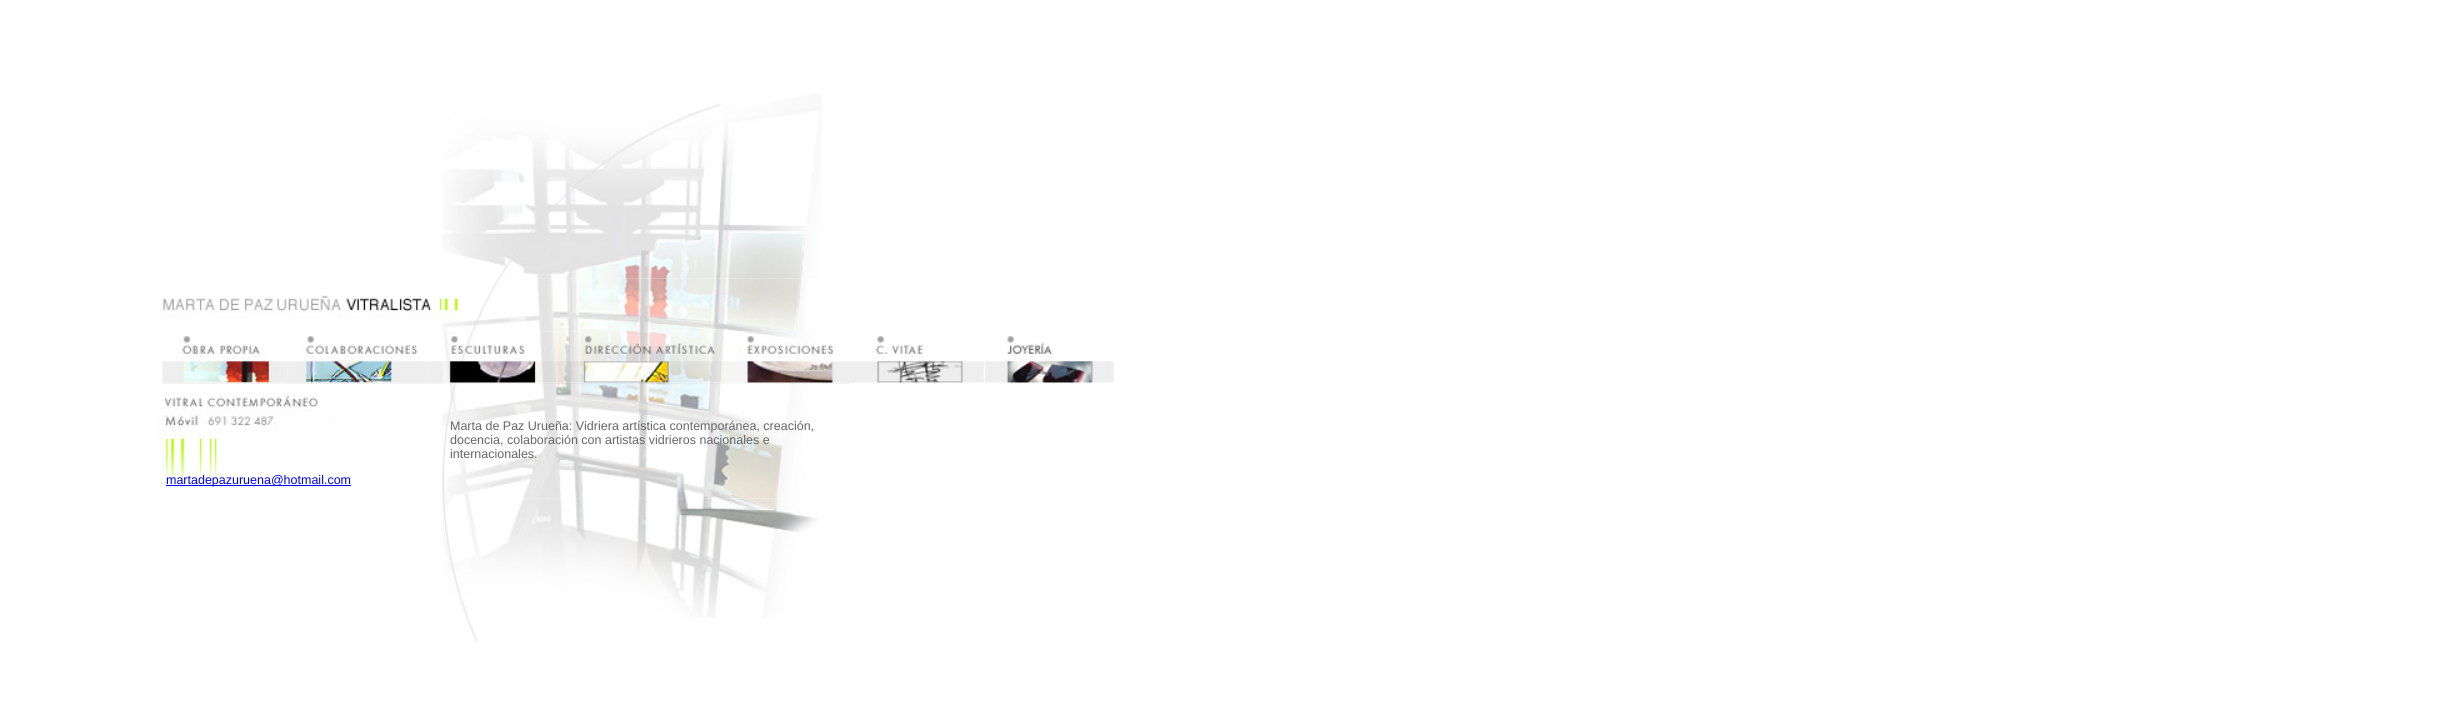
#include <cairo/cairo.h>
#include <math.h>
#include <stddef.h>

typedef struct { double x, y; const char *s; } line_t;
static cairo_t *cr;

static void rgb(unsigned color)
{
	cairo_set_source_rgb(cr, (color >> 16) / 255.0, (color >> 8 & 255) / 255.0, (color & 255) / 255.0);
}

static void image(const char *path, double x, double y, double w, double h)
{
	cairo_surface_t *image = cairo_image_surface_create_from_png(path);
	cairo_save(cr);
	cairo_set_source_surface(cr, image, x, y);
	cairo_rectangle(cr, x, y, w, h);
	cairo_fill(cr);
	cairo_restore(cr);
	cairo_surface_destroy(image);
}

int main(void) {
	cairo_surface_t *surface = cairo_image_surface_create(CAIRO_FORMAT_RGB24, 2459, 715);
	cr = cairo_create(surface);
	cairo_font_options_t *options = cairo_font_options_create();
	cairo_font_options_set_hint_metrics(options, CAIRO_HINT_METRICS_OFF);
	cairo_font_options_set_hint_style(options, CAIRO_HINT_STYLE_NONE);
	cairo_set_font_options(cr, options);
	cairo_set_miter_limit(cr, 4);
	rgb(0xffffff);
	cairo_paint(cr);
	image("img/1.png", 442, 94, 380, 185);
	image("img/3.png", 472, 278, 334, 54);
	image("img/2.png", 159, 295, 314, 36);
	image("img/4.png", 162, 334, 126, 49);
	image("img/5.png", 287, 336, 141, 47);
	image("img/12.png", 431, 382, 419, 117);
	image("img/6.png", 427, 331, 131, 52);
	image("img/7.png", 557, 331, 168, 52);
	image("img/8.png", 725, 331, 130, 52);
	image("img/9.png", 855, 335, 129, 48);
	image("img/10.png", 985, 334, 129, 49);
	image("img/11.png", 157, 382, 274, 109);
	rgb(0x0000ee);
	cairo_rectangle(cr, 166, 485, 185, 1);
	cairo_fill(cr);
	image("img/13.png", 442, 498, 377, 144);
	cairo_select_font_face(cr, "Liberation Sans", CAIRO_FONT_SLANT_NORMAL, CAIRO_FONT_WEIGHT_NORMAL);
	cairo_set_font_size(cr, 12.5);
	rgb(0x666666);
	{
		static const line_t items[] = {
			{450, 430, "Marta de Paz Urueña: Vidriera artística contemporánea, creación,"},
			{450, 444, "docencia, colaboración con artistas vidrieros nacionales e"},
			{450, 458, "internacionales."},
		};
		for (size_t i = 0; i < sizeof items / sizeof *items; i++) {
			cairo_move_to(cr, items[i].x, items[i].y);
			cairo_show_text(cr, items[i].s);
		}
	}
	rgb(0x0000ee);
	cairo_move_to(cr, 166, 484);
	cairo_show_text(cr, "martadepazuruena@hotmail.com");
	cairo_surface_write_to_png(surface, "page.png");
	cairo_font_options_destroy(options);
	cairo_destroy(cr);
	cairo_surface_destroy(surface);
	return 0;
}
